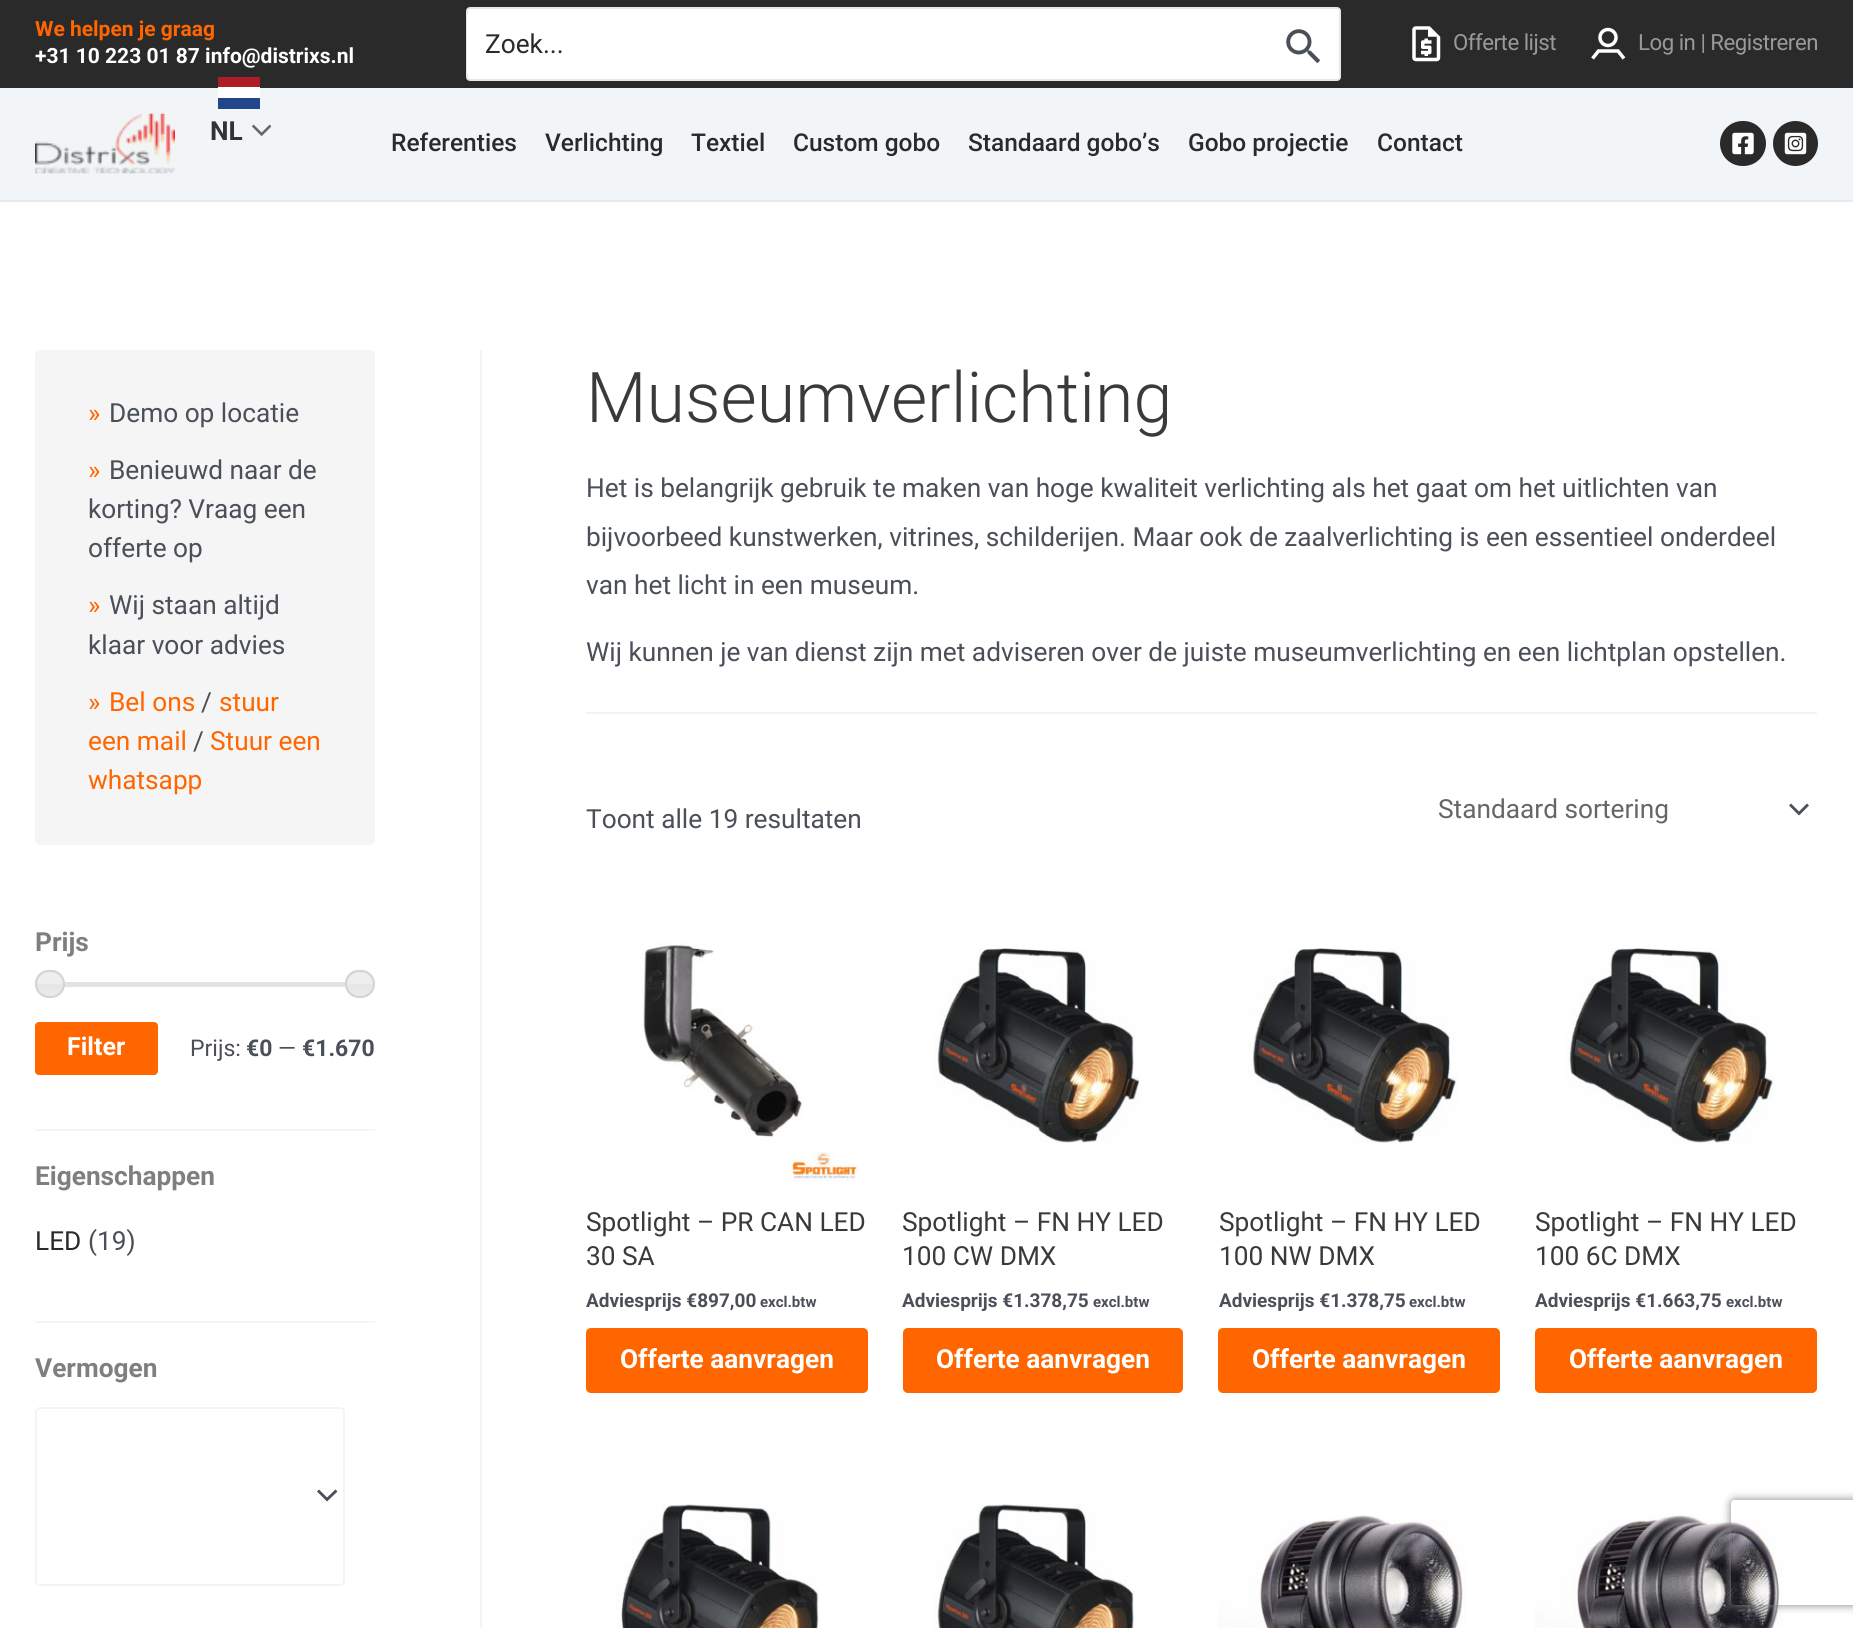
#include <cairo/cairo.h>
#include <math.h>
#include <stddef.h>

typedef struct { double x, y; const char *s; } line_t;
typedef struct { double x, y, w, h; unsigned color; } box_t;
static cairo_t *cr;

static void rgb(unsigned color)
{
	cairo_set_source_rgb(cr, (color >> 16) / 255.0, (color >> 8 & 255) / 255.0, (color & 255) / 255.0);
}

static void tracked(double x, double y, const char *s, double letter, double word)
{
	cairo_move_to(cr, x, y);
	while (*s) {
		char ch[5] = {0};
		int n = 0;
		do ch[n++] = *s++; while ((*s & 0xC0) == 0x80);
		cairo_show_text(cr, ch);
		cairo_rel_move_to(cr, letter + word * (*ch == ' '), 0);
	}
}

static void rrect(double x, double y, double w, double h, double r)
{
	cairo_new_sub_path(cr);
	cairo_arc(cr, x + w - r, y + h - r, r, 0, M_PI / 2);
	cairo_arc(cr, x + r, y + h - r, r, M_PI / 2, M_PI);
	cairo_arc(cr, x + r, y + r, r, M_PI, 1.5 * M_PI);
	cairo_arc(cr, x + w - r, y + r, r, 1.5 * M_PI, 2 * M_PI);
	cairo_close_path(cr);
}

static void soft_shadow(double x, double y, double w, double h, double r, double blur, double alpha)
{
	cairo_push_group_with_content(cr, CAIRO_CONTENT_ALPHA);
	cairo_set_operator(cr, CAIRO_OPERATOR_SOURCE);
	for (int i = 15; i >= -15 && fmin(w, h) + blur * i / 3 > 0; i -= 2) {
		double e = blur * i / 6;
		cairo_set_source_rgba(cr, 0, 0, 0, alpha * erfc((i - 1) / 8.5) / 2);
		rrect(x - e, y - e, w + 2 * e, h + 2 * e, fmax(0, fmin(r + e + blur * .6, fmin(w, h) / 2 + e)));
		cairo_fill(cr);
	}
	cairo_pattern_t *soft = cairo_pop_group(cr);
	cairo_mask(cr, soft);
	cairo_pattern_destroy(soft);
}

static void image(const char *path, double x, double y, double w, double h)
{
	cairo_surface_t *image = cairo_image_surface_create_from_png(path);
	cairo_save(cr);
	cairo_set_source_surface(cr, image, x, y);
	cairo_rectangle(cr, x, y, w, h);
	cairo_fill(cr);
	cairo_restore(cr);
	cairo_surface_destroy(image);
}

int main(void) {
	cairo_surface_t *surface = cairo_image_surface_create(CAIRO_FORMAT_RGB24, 1853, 1628);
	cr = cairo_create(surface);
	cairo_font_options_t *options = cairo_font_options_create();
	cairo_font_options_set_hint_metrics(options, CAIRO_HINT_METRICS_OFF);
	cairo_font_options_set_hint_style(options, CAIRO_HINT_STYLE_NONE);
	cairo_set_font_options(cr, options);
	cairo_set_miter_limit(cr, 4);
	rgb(0xffffff);
	cairo_paint(cr);
	rgb(0x2a2a2a);
	cairo_rectangle(cr, 0, 0, 1853, 88);
	cairo_fill(cr);
	rgb(0xffffff);
	rrect(467, 8, 873, 72, 3);
	cairo_fill_preserve(cr);
	rgb(0xe7e7e7);
	cairo_stroke(cr);
	rgb(0xffffff);
	cairo_rectangle(cr, 467, 14, 1, 60);
	cairo_fill(cr);
	image("img/1.png", 1286, 29, 34, 35);
	image("img/2.png", 1412, 26, 29, 36);
	cairo_new_path(cr);
	cairo_move_to(cr, 1624, 58.5);
	cairo_line_to(cr, 1618, 51);
	cairo_line_to(cr, 1598.5, 51);
	cairo_line_to(cr, 1592.5, 58.5);
	cairo_set_line_width(cr, 3.5);
	cairo_stroke(cr);
	cairo_arc(cr, 1608, 37.5, 8, 0, 2 * M_PI);
	cairo_stroke(cr);
	rgb(0xf2f5f7);
	cairo_rectangle(cr, 0, 88, 1853, 112);
	cairo_fill(cr);
	rgb(0xeaeaea);
	cairo_rectangle(cr, 0, 200, 1853, 2);
	cairo_fill(cr);
	image("img/3.png", 35, 113, 140, 61);
	{
		static const box_t items[] = {
			{218, 87, 42, 11, 0xffffff},
			{218, 98, 42, 11, 0x21468b},
			{218, 77, 42, 10, 0xae1c28},
		};
		for (size_t i = 0; i < sizeof items / sizeof *items; i++) {
			rgb(items[i].color);
			cairo_rectangle(cr, items[i].x, items[i].y, items[i].w, items[i].h);
			cairo_fill(cr);
		}
	}
	image("img/4.png", 252, 124, 19, 12);
	rgb(0x2a2a2a);
	rrect(1720, 121, 46, 45, 22.5);
	cairo_fill(cr);
	image("img/5.png", 1732, 132, 22, 23);
	cairo_arc(cr, 1795.5, 143.5, 22.5, 0, 2 * M_PI);
	cairo_fill(cr);
	image("img/6.png", 1784, 132, 23, 23);
	rgb(0xf2f5f7);
	cairo_rectangle(cr, 480, 350, 2, 1278);
	cairo_fill(cr);
	rgb(0xf5f5f5);
	rrect(35, 350, 340, 495, 5);
	cairo_fill(cr);
	rgb(0xf3f5f7);
	cairo_rectangle(cr, 35, 1129, 340, 2);
	cairo_fill(cr);
	rgb(0xe3e3e3);
	cairo_rectangle(cr, 64, 982, 282, 5);
	cairo_fill(cr);
	image("img/7.png", 35, 969, 30, 28);
	rrect(36, 971, 28, 26, 13);
	rgb(0xd3d3d3);
	cairo_set_line_width(cr, 2);
	cairo_stroke(cr);
	image("img/8.png", 345, 969, 29, 28);
	rrect(346, 971, 28, 26, 13);
	cairo_stroke(cr);
	rgb(0xff6600);
	rrect(35, 1022, 123, 53, 4);
	cairo_fill(cr);
	rgb(0xf3f5f7);
	cairo_rectangle(cr, 35, 1321, 340, 2);
	cairo_fill(cr);
	rgb(0x4b4f58);
	cairo_new_path(cr);
	cairo_move_to(cr, 317, 1491.5);
	cairo_line_to(cr, 327, 1501.5);
	cairo_line_to(cr, 337.5, 1491.5);
	cairo_line_to(cr, 335.5, 1489.5);
	cairo_line_to(cr, 327, 1497.5);
	cairo_line_to(cr, 319, 1489.5);
	cairo_close_path(cr);
	cairo_fill(cr);
	rrect(36, 1408, 308, 177, 4);
	rgb(0xf2f5f7);
	cairo_stroke(cr);
	cairo_rectangle(cr, 586, 712, 1231, 2);
	cairo_fill(cr);
	rgb(0x4b4f58);
	cairo_new_path(cr);
	cairo_move_to(cr, 1789, 805.5);
	cairo_line_to(cr, 1799, 815.5);
	cairo_line_to(cr, 1809, 805.5);
	cairo_line_to(cr, 1807, 803.5);
	cairo_line_to(cr, 1799, 811.5);
	cairo_line_to(cr, 1791, 803.5);
	cairo_close_path(cr);
	cairo_fill(cr);
	image("img/9.png", 640, 942, 217, 239);
	rgb(0xff6600);
	rrect(586, 1328, 282, 65, 5);
	cairo_fill(cr);
	image("img/10.png", 933, 948, 209, 195);
	rrect(903, 1328, 280, 65, 5);
	cairo_fill(cr);
	image("img/11.png", 1248, 948, 210, 195);
	rrect(1218, 1328, 282, 65, 5);
	cairo_fill(cr);
	image("img/12.png", 1565, 948, 210, 196);
	rrect(1535, 1328, 282, 65, 5);
	cairo_fill(cr);
	image("img/13.png", 616, 1504, 203, 124);
	image("img/14.png", 933, 1504, 201, 124);
	image("img/15.png", 1218, 1514, 248, 114);
	image("img/16.png", 1535, 1514, 248, 114);
	cairo_save(cr);
	cairo_set_fill_rule(cr, CAIRO_FILL_RULE_EVEN_ODD);
	cairo_new_path(cr);
	cairo_move_to(cr, 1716, 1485);
	cairo_line_to(cr, 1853, 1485);
	cairo_line_to(cr, 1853, 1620);
	cairo_line_to(cr, 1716, 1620);
	cairo_close_path(cr);
	cairo_move_to(cr, 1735, 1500);
	cairo_line_to(cr, 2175, 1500);
	cairo_curve_to(cr, 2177, 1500, 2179, 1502, 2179, 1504);
	cairo_line_to(cr, 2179, 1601);
	cairo_curve_to(cr, 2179, 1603, 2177, 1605, 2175, 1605);
	cairo_line_to(cr, 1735, 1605);
	cairo_curve_to(cr, 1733, 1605, 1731, 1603, 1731, 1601);
	cairo_line_to(cr, 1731, 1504);
	cairo_curve_to(cr, 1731, 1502, 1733, 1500, 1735, 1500);
	cairo_close_path(cr);
	cairo_clip(cr);
	rgb(0x808080);
	soft_shadow(1731, 1500, 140, 105, 4, 4.5, 1);
	cairo_restore(cr);
	cairo_select_font_face(cr, "Roboto", CAIRO_FONT_SLANT_NORMAL, CAIRO_FONT_WEIGHT_BOLD);
	cairo_set_font_size(cr, 21);
	cairo_move_to(cr, 35, 36);
	cairo_show_text(cr, "We helpen je graag");
	rgb(0xffffff);
	cairo_move_to(cr, 35, 63);
	cairo_show_text(cr, "+31 10 223 01 87 info@distrixs.nl");
	cairo_select_font_face(cr, "Roboto", CAIRO_FONT_SLANT_NORMAL, CAIRO_FONT_WEIGHT_NORMAL);
	cairo_set_font_size(cr, 26.25);
	rgb(0x2a2a2a);
	cairo_move_to(cr, 485, 53);
	cairo_show_text(cr, "Zoek...");
	cairo_set_font_size(cr, 22.25);
	rgb(0x999999);
	tracked(1453, 50, "Offerte lijst", -0.5, 0);
	tracked(1638, 50, "Log in | Registreren", -0.5, 0);
	cairo_select_font_face(cr, "Roboto", CAIRO_FONT_SLANT_NORMAL, CAIRO_FONT_WEIGHT_BOLD);
	cairo_set_font_size(cr, 26.25);
	rgb(0x333333);
	cairo_move_to(cr, 210, 140);
	cairo_show_text(cr, "NL");
	cairo_select_font_face(cr, "Roboto Medium", CAIRO_FONT_SLANT_NORMAL, CAIRO_FONT_WEIGHT_NORMAL);
	cairo_set_font_size(cr, 24.5);
	rgb(0x2a2a2a);
	{
		static const line_t items[] = {
			{391, 151, "Referenties"},
			{545, 151, "Verlichting"},
			{691, 151, "Textiel"},
			{793, 151, "Custom gobo"},
			{968, 151, "Standaard gobo’s"},
			{1188, 151, "Gobo projectie"},
			{1377, 151, "Contact"},
		};
		for (size_t i = 0; i < sizeof items / sizeof *items; i++) {
			cairo_move_to(cr, items[i].x, items[i].y);
			cairo_show_text(cr, items[i].s);
		}
	}
	cairo_select_font_face(cr, "Roboto", CAIRO_FONT_SLANT_NORMAL, CAIRO_FONT_WEIGHT_NORMAL);
	cairo_set_font_size(cr, 26.25);
	rgb(0xff6600);
	cairo_move_to(cr, 88, 422);
	cairo_show_text(cr, "»");
	rgb(0x4b4f58);
	cairo_move_to(cr, 109, 422);
	cairo_show_text(cr, "Demo op locatie");
	rgb(0xff6600);
	cairo_move_to(cr, 88, 479);
	cairo_show_text(cr, "»");
	rgb(0x4b4f58);
	{
		static const line_t items[] = {
			{109, 479, "Benieuwd naar de"},
			{88, 518, "korting? Vraag een"},
			{88, 557, "offerte op"},
		};
		for (size_t i = 0; i < sizeof items / sizeof *items; i++) {
			cairo_move_to(cr, items[i].x, items[i].y);
			cairo_show_text(cr, items[i].s);
		}
	}
	rgb(0xff6600);
	cairo_move_to(cr, 88, 614);
	cairo_show_text(cr, "»");
	rgb(0x4b4f58);
	cairo_move_to(cr, 109, 614);
	cairo_show_text(cr, "Wij staan altijd");
	cairo_move_to(cr, 88, 654);
	cairo_show_text(cr, "klaar voor advies");
	rgb(0xff6600);
	cairo_move_to(cr, 88, 711);
	cairo_show_text(cr, "»");
	cairo_move_to(cr, 109, 711);
	cairo_show_text(cr, "Bel ons");
	rgb(0x4b4f58);
	cairo_move_to(cr, 201, 711);
	cairo_show_text(cr, "/");
	rgb(0xff6600);
	cairo_move_to(cr, 219, 711);
	cairo_show_text(cr, "stuur");
	cairo_move_to(cr, 88, 750);
	cairo_show_text(cr, "een mail");
	rgb(0x4b4f58);
	cairo_move_to(cr, 193, 750);
	cairo_show_text(cr, "/");
	rgb(0xff6600);
	cairo_move_to(cr, 210, 750);
	cairo_show_text(cr, "Stuur een");
	cairo_move_to(cr, 88, 789);
	cairo_show_text(cr, "whatsapp");
	cairo_select_font_face(cr, "Roboto", CAIRO_FONT_SLANT_NORMAL, CAIRO_FONT_WEIGHT_BOLD);
	rgb(0x7f7f7f);
	cairo_move_to(cr, 35, 951);
	cairo_show_text(cr, "Prijs");
	cairo_set_font_size(cr, 25);
	rgb(0xffffff);
	cairo_move_to(cr, 67, 1055);
	cairo_show_text(cr, "Filter");
	cairo_select_font_face(cr, "Roboto", CAIRO_FONT_SLANT_NORMAL, CAIRO_FONT_WEIGHT_NORMAL);
	cairo_set_font_size(cr, 23);
	rgb(0x4b4f58);
	cairo_move_to(cr, 190, 1056);
	cairo_show_text(cr, "Prijs:");
	cairo_select_font_face(cr, "Roboto", CAIRO_FONT_SLANT_NORMAL, CAIRO_FONT_WEIGHT_BOLD);
	cairo_move_to(cr, 246, 1056);
	cairo_show_text(cr, "€0");
	cairo_select_font_face(cr, "Roboto", CAIRO_FONT_SLANT_NORMAL, CAIRO_FONT_WEIGHT_NORMAL);
	cairo_move_to(cr, 278, 1056);
	cairo_show_text(cr, "—");
	cairo_select_font_face(cr, "Roboto", CAIRO_FONT_SLANT_NORMAL, CAIRO_FONT_WEIGHT_BOLD);
	cairo_move_to(cr, 302, 1056);
	cairo_show_text(cr, "€1.670");
	cairo_set_font_size(cr, 26.25);
	rgb(0x7f7f7f);
	cairo_move_to(cr, 35, 1185);
	cairo_show_text(cr, "Eigenschappen");
	cairo_select_font_face(cr, "Roboto", CAIRO_FONT_SLANT_NORMAL, CAIRO_FONT_WEIGHT_NORMAL);
	rgb(0x2a2a2a);
	cairo_move_to(cr, 35, 1250);
	cairo_show_text(cr, "LED");
	rgb(0x4b4f58);
	cairo_move_to(cr, 88, 1250);
	cairo_show_text(cr, "(19)");
	cairo_select_font_face(cr, "Roboto", CAIRO_FONT_SLANT_NORMAL, CAIRO_FONT_WEIGHT_BOLD);
	rgb(0x7f7f7f);
	cairo_move_to(cr, 35, 1377);
	cairo_show_text(cr, "Vermogen");
	cairo_select_font_face(cr, "Roboto Light", CAIRO_FONT_SLANT_NORMAL, CAIRO_FONT_WEIGHT_NORMAL);
	cairo_set_font_size(cr, 70);
	rgb(0x3a3a3a);
	cairo_move_to(cr, 586, 422);
	cairo_show_text(cr, "Museumverlichting");
	cairo_select_font_face(cr, "Roboto", CAIRO_FONT_SLANT_NORMAL, CAIRO_FONT_WEIGHT_NORMAL);
	cairo_set_font_size(cr, 26.25);
	rgb(0x4b4f58);
	{
		static const line_t items[] = {
			{586, 497, "Het is belangrijk gebruik te maken van hoge kwaliteit verlichting als het gaat om het uitlichten van"},
			{586, 546, "bijvoorbeed kunstwerken, vitrines, schilderijen. Maar ook de zaalverlichting is een essentieel onderdeel"},
			{586, 594, "van het licht in een museum."},
			{586, 661, "Wij kunnen je van dienst zijn met adviseren over de juiste museumverlichting en een lichtplan opstellen."},
			{586, 828, "Toont alle 19 resultaten"},
		};
		for (size_t i = 0; i < sizeof items / sizeof *items; i++) {
			cairo_move_to(cr, items[i].x, items[i].y);
			cairo_show_text(cr, items[i].s);
		}
	}
	rgb(0x666666);
	cairo_move_to(cr, 1438, 818);
	cairo_show_text(cr, "Standaard sortering");
	rgb(0x3a3a3a);
	cairo_move_to(cr, 586, 1231);
	cairo_show_text(cr, "Spotlight – PR CAN LED");
	cairo_move_to(cr, 586, 1265);
	cairo_show_text(cr, "30 SA");
	cairo_select_font_face(cr, "Roboto", CAIRO_FONT_SLANT_NORMAL, CAIRO_FONT_WEIGHT_BOLD);
	cairo_set_font_size(cr, 19);
	rgb(0x4b4f58);
	cairo_move_to(cr, 586, 1307);
	cairo_show_text(cr, "Adviesprijs €897,00");
	cairo_set_font_size(cr, 15);
	cairo_move_to(cr, 760, 1307);
	cairo_show_text(cr, "excl.btw");
	cairo_set_font_size(cr, 26.25);
	rgb(0xffffff);
	cairo_move_to(cr, 620, 1368);
	cairo_show_text(cr, "Offerte aanvragen");
	cairo_select_font_face(cr, "Roboto", CAIRO_FONT_SLANT_NORMAL, CAIRO_FONT_WEIGHT_NORMAL);
	rgb(0x3a3a3a);
	cairo_move_to(cr, 902, 1231);
	cairo_show_text(cr, "Spotlight – FN HY LED");
	cairo_move_to(cr, 902, 1265);
	cairo_show_text(cr, "100 CW DMX");
	cairo_select_font_face(cr, "Roboto", CAIRO_FONT_SLANT_NORMAL, CAIRO_FONT_WEIGHT_BOLD);
	cairo_set_font_size(cr, 19);
	rgb(0x4b4f58);
	cairo_move_to(cr, 902, 1307);
	cairo_show_text(cr, "Adviesprijs €1.378,75");
	cairo_set_font_size(cr, 15);
	cairo_move_to(cr, 1093, 1307);
	cairo_show_text(cr, "excl.btw");
	cairo_set_font_size(cr, 26.25);
	rgb(0xffffff);
	cairo_move_to(cr, 936, 1368);
	cairo_show_text(cr, "Offerte aanvragen");
	cairo_select_font_face(cr, "Roboto", CAIRO_FONT_SLANT_NORMAL, CAIRO_FONT_WEIGHT_NORMAL);
	rgb(0x3a3a3a);
	cairo_move_to(cr, 1219, 1231);
	cairo_show_text(cr, "Spotlight – FN HY LED");
	cairo_move_to(cr, 1219, 1265);
	cairo_show_text(cr, "100 NW DMX");
	cairo_select_font_face(cr, "Roboto", CAIRO_FONT_SLANT_NORMAL, CAIRO_FONT_WEIGHT_BOLD);
	cairo_set_font_size(cr, 19);
	rgb(0x4b4f58);
	cairo_move_to(cr, 1219, 1307);
	cairo_show_text(cr, "Adviesprijs €1.378,75");
	cairo_set_font_size(cr, 15);
	cairo_move_to(cr, 1409, 1307);
	cairo_show_text(cr, "excl.btw");
	cairo_set_font_size(cr, 26.25);
	rgb(0xffffff);
	cairo_move_to(cr, 1252, 1368);
	cairo_show_text(cr, "Offerte aanvragen");
	cairo_select_font_face(cr, "Roboto", CAIRO_FONT_SLANT_NORMAL, CAIRO_FONT_WEIGHT_NORMAL);
	rgb(0x3a3a3a);
	cairo_move_to(cr, 1535, 1231);
	cairo_show_text(cr, "Spotlight – FN HY LED");
	cairo_move_to(cr, 1535, 1265);
	cairo_show_text(cr, "100 6C DMX");
	cairo_select_font_face(cr, "Roboto", CAIRO_FONT_SLANT_NORMAL, CAIRO_FONT_WEIGHT_BOLD);
	cairo_set_font_size(cr, 19);
	rgb(0x4b4f58);
	cairo_move_to(cr, 1535, 1307);
	cairo_show_text(cr, "Adviesprijs €1.663,75");
	cairo_set_font_size(cr, 15);
	cairo_move_to(cr, 1726, 1307);
	cairo_show_text(cr, "excl.btw");
	cairo_set_font_size(cr, 26.25);
	rgb(0xffffff);
	cairo_move_to(cr, 1569, 1368);
	cairo_show_text(cr, "Offerte aanvragen");
	cairo_surface_write_to_png(surface, "page.png");
	cairo_font_options_destroy(options);
	cairo_destroy(cr);
	cairo_surface_destroy(surface);
	return 0;
}
